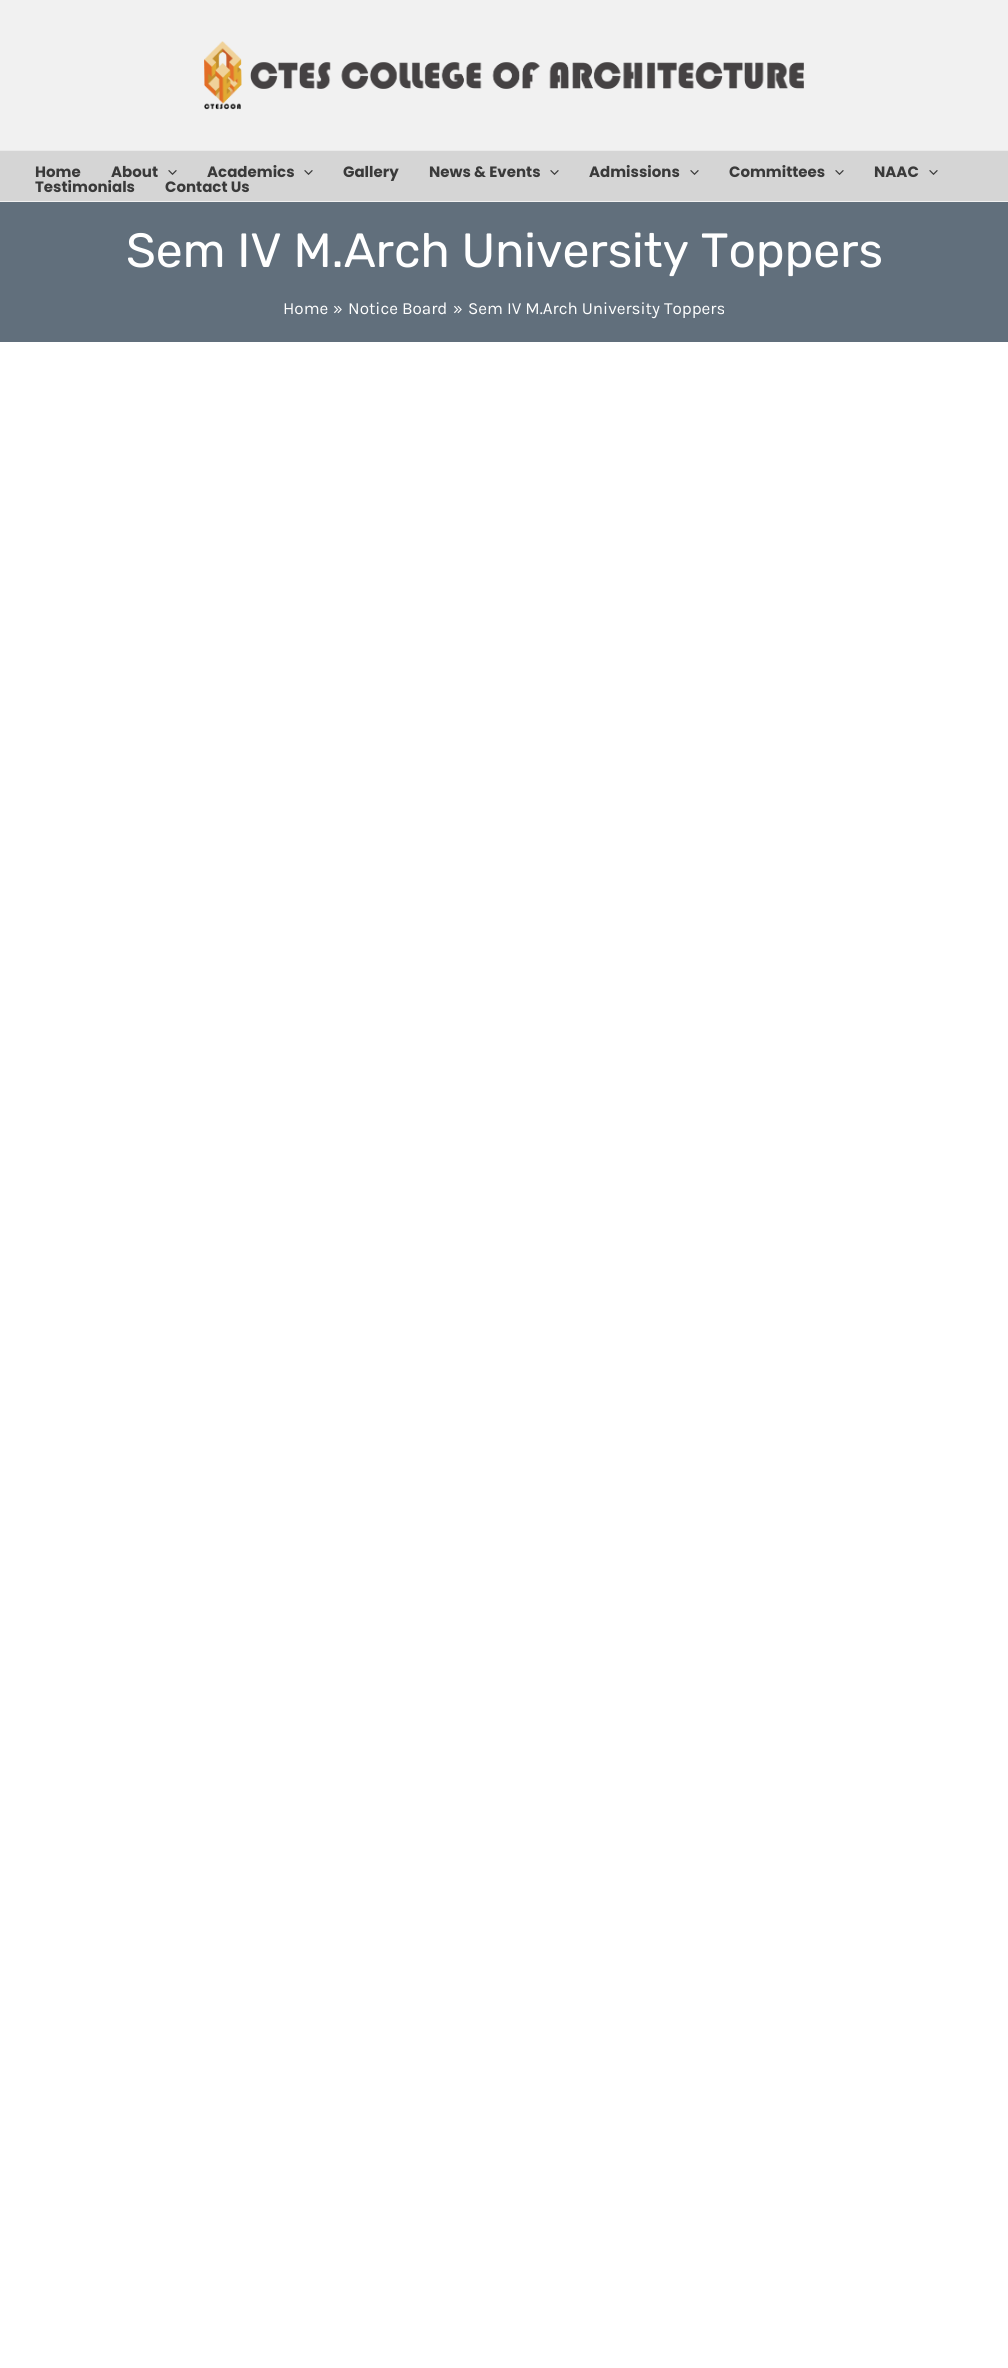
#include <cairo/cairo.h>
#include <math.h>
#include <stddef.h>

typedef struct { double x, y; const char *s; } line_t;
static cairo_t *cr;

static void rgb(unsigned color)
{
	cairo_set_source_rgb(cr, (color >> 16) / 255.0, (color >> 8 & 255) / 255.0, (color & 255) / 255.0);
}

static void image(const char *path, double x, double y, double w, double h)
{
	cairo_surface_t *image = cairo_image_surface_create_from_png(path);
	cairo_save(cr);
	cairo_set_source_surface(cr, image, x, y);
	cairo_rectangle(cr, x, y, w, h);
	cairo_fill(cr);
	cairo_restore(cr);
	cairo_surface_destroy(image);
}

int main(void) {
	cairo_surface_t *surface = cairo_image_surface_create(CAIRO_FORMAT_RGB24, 1008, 2368);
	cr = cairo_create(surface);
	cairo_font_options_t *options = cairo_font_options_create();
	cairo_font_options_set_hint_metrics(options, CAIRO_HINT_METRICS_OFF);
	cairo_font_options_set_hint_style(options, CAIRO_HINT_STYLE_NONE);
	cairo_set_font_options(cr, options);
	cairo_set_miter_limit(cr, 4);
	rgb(0xffffff);
	cairo_paint(cr);
	rgb(0xf1f1f1);
	cairo_rectangle(cr, 0, 0, 1008, 150);
	cairo_fill(cr);
	rgb(0xeaeaea);
	cairo_rectangle(cr, 0, 150, 1008, 1);
	cairo_fill(cr);
	image("img/1.png", 204, 41, 600, 69);
	rgb(0xd5d5d5);
	cairo_rectangle(cr, 0, 151, 1008, 50);
	cairo_fill(cr);
	rgb(0xf1f1f1);
	cairo_rectangle(cr, 0, 201, 1008, 1);
	cairo_fill(cr);
	image("img/2.png", 168, 170, 9, 5);
	image("img/2.png", 304, 170, 9, 5);
	image("img/2.png", 550, 170, 9, 5);
	image("img/2.png", 690, 170, 9, 5);
	image("img/2.png", 835, 170, 9, 5);
	image("img/2.png", 929, 170, 9, 5);
	rgb(0x616f7c);
	cairo_rectangle(cr, 0, 202, 1008, 140);
	cairo_fill(cr);
	cairo_select_font_face(cr, "Poppins", CAIRO_FONT_SLANT_NORMAL, CAIRO_FONT_WEIGHT_BOLD);
	cairo_set_font_size(cr, 15);
	rgb(0x3a3a3a);
	{
		static const line_t items[] = {
			{35, 177, "Home"},
			{111, 177, "About"},
			{207, 177, "Academics"},
			{343, 177, "Gallery"},
			{429, 177, "News & Events"},
			{589, 177, "Admissions"},
			{729, 177, "Committees"},
			{874, 177, "NAAC"},
			{35, 192, "Testimonials"},
			{165, 192, "Contact Us"},
		};
		for (size_t i = 0; i < sizeof items / sizeof *items; i++) {
			cairo_move_to(cr, items[i].x, items[i].y);
			cairo_show_text(cr, items[i].s);
		}
	}
	cairo_select_font_face(cr, "Rubik", CAIRO_FONT_SLANT_NORMAL, CAIRO_FONT_WEIGHT_NORMAL);
	cairo_set_font_size(cr, 48);
	rgb(0xffffff);
	cairo_move_to(cr, 126, 267);
	cairo_show_text(cr, "Sem IV M.Arch University Toppers");
	cairo_select_font_face(cr, "Karla", CAIRO_FONT_SLANT_NORMAL, CAIRO_FONT_WEIGHT_NORMAL);
	cairo_set_font_size(cr, 17);
	{
		static const line_t items[] = {
			{283, 314, "Home"},
			{333, 314, "»"},
			{348, 314, "Notice Board"},
			{453, 314, "»"},
			{468, 314, "Sem IV M.Arch University Toppers"},
		};
		for (size_t i = 0; i < sizeof items / sizeof *items; i++) {
			cairo_move_to(cr, items[i].x, items[i].y);
			cairo_show_text(cr, items[i].s);
		}
	}
	cairo_surface_write_to_png(surface, "page.png");
	cairo_font_options_destroy(options);
	cairo_destroy(cr);
	cairo_surface_destroy(surface);
	return 0;
}
